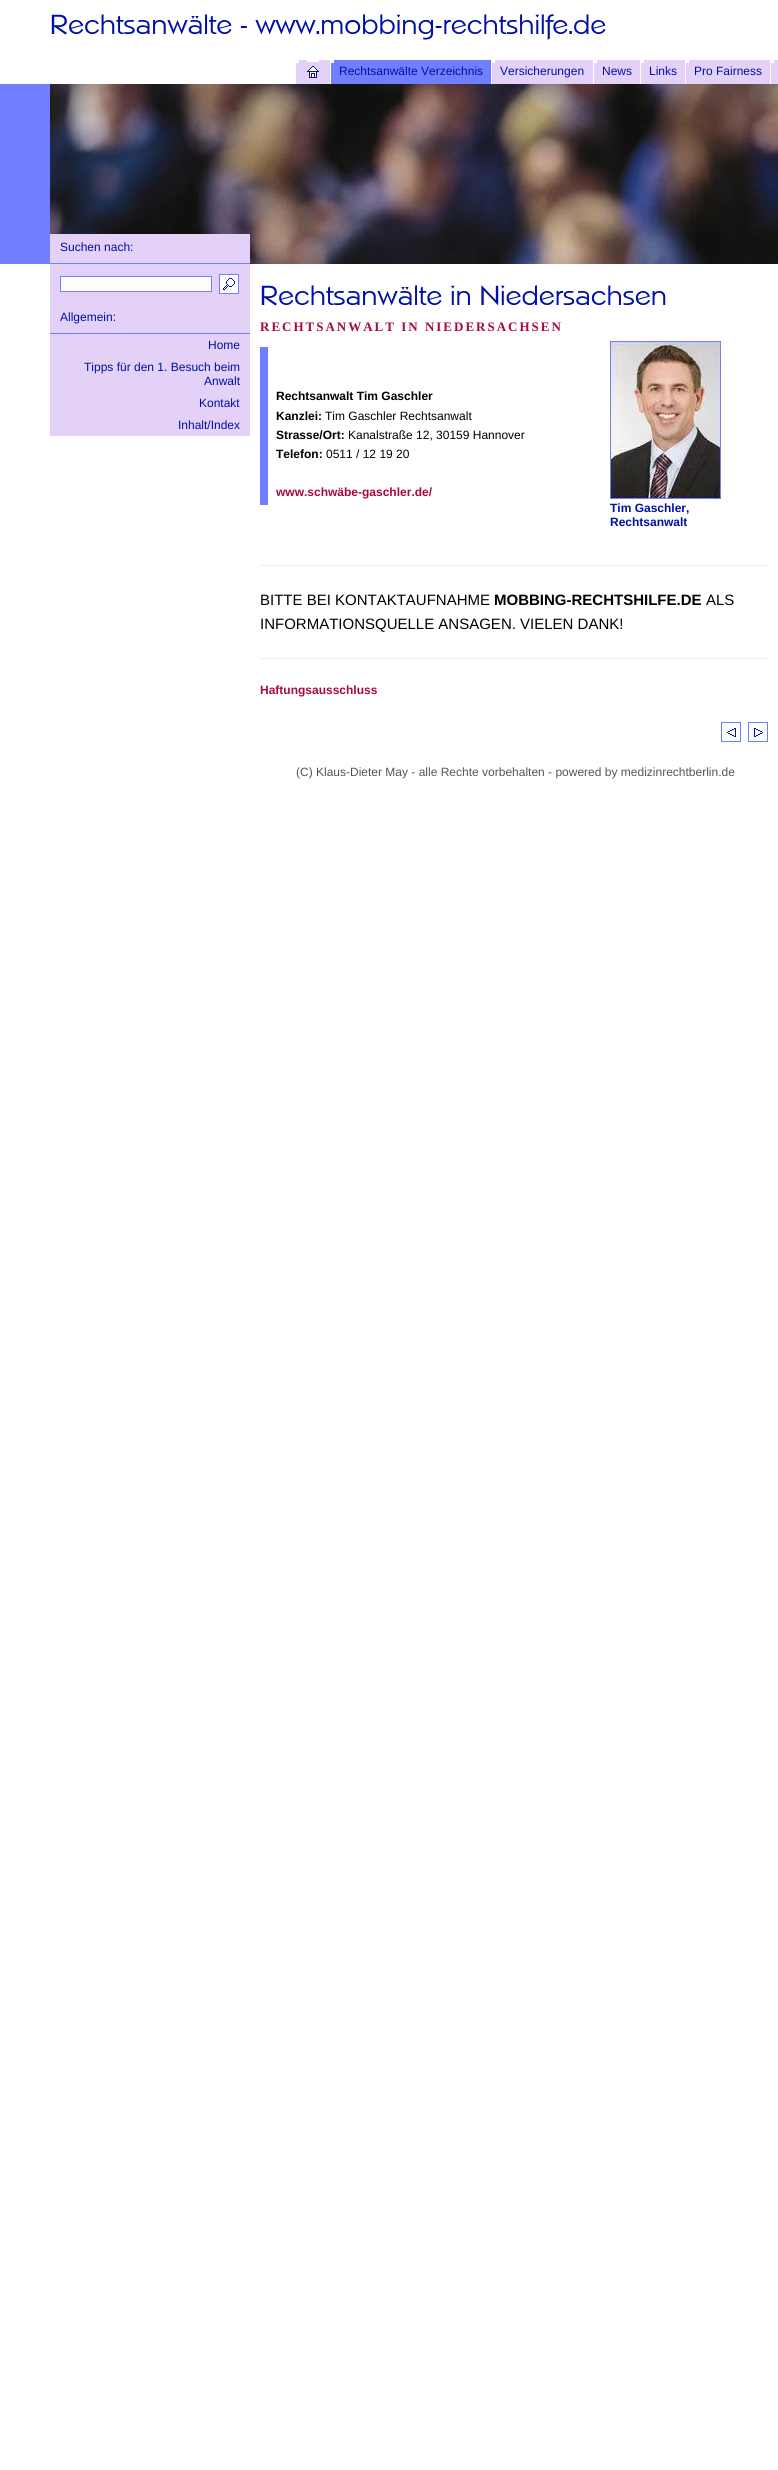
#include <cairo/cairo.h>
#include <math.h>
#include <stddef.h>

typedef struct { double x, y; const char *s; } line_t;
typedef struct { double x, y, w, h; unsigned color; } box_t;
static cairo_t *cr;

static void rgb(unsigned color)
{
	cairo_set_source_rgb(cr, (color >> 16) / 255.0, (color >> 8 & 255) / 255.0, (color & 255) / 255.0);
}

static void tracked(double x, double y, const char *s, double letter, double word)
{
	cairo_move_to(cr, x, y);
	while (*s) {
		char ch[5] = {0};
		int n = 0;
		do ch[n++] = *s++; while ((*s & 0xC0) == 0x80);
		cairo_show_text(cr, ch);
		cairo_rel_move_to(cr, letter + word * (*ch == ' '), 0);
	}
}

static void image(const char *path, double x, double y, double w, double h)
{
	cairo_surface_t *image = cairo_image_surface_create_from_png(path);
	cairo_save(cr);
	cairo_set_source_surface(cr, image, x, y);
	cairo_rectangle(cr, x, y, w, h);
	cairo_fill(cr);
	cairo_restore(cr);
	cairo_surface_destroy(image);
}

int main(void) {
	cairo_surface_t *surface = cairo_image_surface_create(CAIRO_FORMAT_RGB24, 778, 2470);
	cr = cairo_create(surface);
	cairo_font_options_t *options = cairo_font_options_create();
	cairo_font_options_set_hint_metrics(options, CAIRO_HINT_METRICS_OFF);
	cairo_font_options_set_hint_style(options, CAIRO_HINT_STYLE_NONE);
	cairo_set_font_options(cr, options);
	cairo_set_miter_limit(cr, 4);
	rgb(0xffffff);
	cairo_paint(cr);
	image("img/1.png", 51, 14, 555, 26);
	{
		static const box_t items[] = {
			{296, 60, 11, 24, 0xe4d1f8},
			{296, 60, 3, 3, 0xffffff},
			{319, 60, 11, 24, 0xe4d1f8},
			{771, 60, 7, 26, 0xe4d1f8},
			{771, 60, 3, 3, 0xffffff},
			{307, 62, 12, 22, 0xe4d1f8},
		};
		for (size_t i = 0; i < sizeof items / sizeof *items; i++) {
			rgb(items[i].color);
			cairo_rectangle(cr, items[i].x, items[i].y, items[i].w, items[i].h);
			cairo_fill(cr);
		}
	}
	image("img/2.png", 307, 66, 12, 12);
	{
		static const box_t items[] = {
			{331, 60, 160, 24, 0x707fff},
			{331, 60, 3, 3, 0xffffff},
			{492, 60, 101, 24, 0xe4d1f8},
			{492, 60, 3, 3, 0xffffff},
			{594, 60, 46, 24, 0xe4d1f8},
			{594, 60, 3, 3, 0xffffff},
			{641, 60, 44, 24, 0xe4d1f8},
			{641, 60, 3, 3, 0xffffff},
			{686, 60, 84, 24, 0xe4d1f8},
			{686, 60, 3, 3, 0xffffff},
			{0, 84, 50, 180, 0x707fff},
		};
		for (size_t i = 0; i < sizeof items / sizeof *items; i++) {
			rgb(items[i].color);
			cairo_rectangle(cr, items[i].x, items[i].y, items[i].w, items[i].h);
			cairo_fill(cr);
		}
	}
	image("img/3.png", 50, 84, 728, 180);
	rgb(0xe4d1f8);
	cairo_rectangle(cr, 50, 234, 200, 202);
	cairo_fill(cr);
	rgb(0x707fff);
	cairo_rectangle(cr, 50, 263, 200, 1);
	cairo_fill(cr);
	rgb(0xffffff);
	cairo_rectangle(cr, 60.5, 276.5, 151, 15);
	cairo_fill_preserve(cr);
	rgb(0x707fff);
	cairo_set_line_width(cr, 1);
	cairo_stroke(cr);
	image("img/4.png", 219, 274, 20, 20);
	cairo_rectangle(cr, 50, 333, 200, 1);
	cairo_fill(cr);
	image("img/5.png", 261, 285, 405, 21);
	cairo_rectangle(cr, 260, 347, 8, 158);
	cairo_fill(cr);
	image("img/6.png", 610, 341, 111, 158);
	rgb(0xeeeeee);
	cairo_rectangle(cr, 260, 565, 510, 1);
	cairo_fill(cr);
	cairo_rectangle(cr, 260, 658, 510, 1);
	cairo_fill(cr);
	image("img/7.png", 721, 722, 20, 20);
	image("img/8.png", 748, 722, 20, 20);
	cairo_select_font_face(cr, "Liberation Sans", CAIRO_FONT_SLANT_NORMAL, CAIRO_FONT_WEIGHT_NORMAL);
	cairo_set_font_size(cr, 12);
	rgb(0x0010a4);
	{
		static const line_t items[] = {
			{339, 75, "Rechtsanwälte Verzeichnis"},
			{500, 75, "Versicherungen"},
			{602, 75, "News"},
			{649, 75, "Links"},
			{694, 75, "Pro Fairness"},
			{60, 251, "Suchen nach:"},
			{60, 321, "Allgemein:"},
			{208, 349, "Home"},
			{84, 371, "Tipps für den 1. Besuch beim"},
			{204, 385, "Anwalt"},
			{199, 407, "Kontakt"},
			{178, 429, "Inhalt/Index"},
		};
		for (size_t i = 0; i < sizeof items / sizeof *items; i++) {
			cairo_move_to(cr, items[i].x, items[i].y);
			cairo_show_text(cr, items[i].s);
		}
	}
	cairo_select_font_face(cr, "Liberation Serif", CAIRO_FONT_SLANT_NORMAL, CAIRO_FONT_WEIGHT_BOLD);
	cairo_set_font_size(cr, 13);
	rgb(0xa70a37);
	tracked(260, 331, "RECHTSANWALT IN NIEDERSACHSEN", 2, 0);
	cairo_select_font_face(cr, "Liberation Sans", CAIRO_FONT_SLANT_NORMAL, CAIRO_FONT_WEIGHT_BOLD);
	cairo_set_font_size(cr, 12);
	rgb(0x000000);
	cairo_move_to(cr, 276, 400);
	cairo_show_text(cr, "Rechtsanwalt Tim Gaschler");
	cairo_move_to(cr, 276, 420);
	cairo_show_text(cr, "Kanzlei:");
	cairo_select_font_face(cr, "Liberation Sans", CAIRO_FONT_SLANT_NORMAL, CAIRO_FONT_WEIGHT_NORMAL);
	cairo_move_to(cr, 325, 420);
	cairo_show_text(cr, "Tim Gaschler Rechtsanwalt");
	cairo_select_font_face(cr, "Liberation Sans", CAIRO_FONT_SLANT_NORMAL, CAIRO_FONT_WEIGHT_BOLD);
	cairo_move_to(cr, 276, 439);
	cairo_show_text(cr, "Strasse/Ort:");
	cairo_select_font_face(cr, "Liberation Sans", CAIRO_FONT_SLANT_NORMAL, CAIRO_FONT_WEIGHT_NORMAL);
	cairo_move_to(cr, 348, 439);
	cairo_show_text(cr, "Kanalstraße 12, 30159 Hannover");
	cairo_select_font_face(cr, "Liberation Sans", CAIRO_FONT_SLANT_NORMAL, CAIRO_FONT_WEIGHT_BOLD);
	cairo_move_to(cr, 276, 458);
	cairo_show_text(cr, "Telefon:");
	cairo_select_font_face(cr, "Liberation Sans", CAIRO_FONT_SLANT_NORMAL, CAIRO_FONT_WEIGHT_NORMAL);
	cairo_move_to(cr, 326, 458);
	cairo_show_text(cr, "0511 / 12 19 20");
	cairo_select_font_face(cr, "Liberation Sans", CAIRO_FONT_SLANT_NORMAL, CAIRO_FONT_WEIGHT_BOLD);
	rgb(0xa70a37);
	cairo_move_to(cr, 276, 496);
	cairo_show_text(cr, "www.schwäbe-gaschler.de/");
	rgb(0x0010a4);
	cairo_move_to(cr, 610, 512);
	cairo_show_text(cr, "Tim Gaschler,");
	cairo_move_to(cr, 610, 526);
	cairo_show_text(cr, "Rechtsanwalt");
	cairo_select_font_face(cr, "Liberation Sans", CAIRO_FONT_SLANT_NORMAL, CAIRO_FONT_WEIGHT_NORMAL);
	cairo_set_font_size(cr, 15);
	rgb(0x000000);
	cairo_move_to(cr, 260, 605);
	cairo_show_text(cr, "BITTE BEI KONTAKTAUFNAHME");
	cairo_select_font_face(cr, "Liberation Sans", CAIRO_FONT_SLANT_NORMAL, CAIRO_FONT_WEIGHT_BOLD);
	cairo_move_to(cr, 494, 605);
	cairo_show_text(cr, "MOBBING-RECHTSHILFE.DE");
	cairo_select_font_face(cr, "Liberation Sans", CAIRO_FONT_SLANT_NORMAL, CAIRO_FONT_WEIGHT_NORMAL);
	cairo_move_to(cr, 706, 605);
	cairo_show_text(cr, "ALS");
	cairo_move_to(cr, 260, 629);
	cairo_show_text(cr, "INFORMATIONSQUELLE ANSAGEN. VIELEN DANK!");
	cairo_select_font_face(cr, "Liberation Sans", CAIRO_FONT_SLANT_NORMAL, CAIRO_FONT_WEIGHT_BOLD);
	cairo_set_font_size(cr, 12);
	rgb(0xa70a37);
	cairo_move_to(cr, 260, 694);
	cairo_show_text(cr, "Haftungsausschluss");
	cairo_select_font_face(cr, "Liberation Sans", CAIRO_FONT_SLANT_NORMAL, CAIRO_FONT_WEIGHT_NORMAL);
	rgb(0x555555);
	cairo_move_to(cr, 296, 776);
	cairo_show_text(cr, "(C) Klaus-Dieter May - alle Rechte vorbehalten - powered by medizinrechtberlin.de");
	cairo_surface_write_to_png(surface, "page.png");
	cairo_font_options_destroy(options);
	cairo_destroy(cr);
	cairo_surface_destroy(surface);
	return 0;
}
